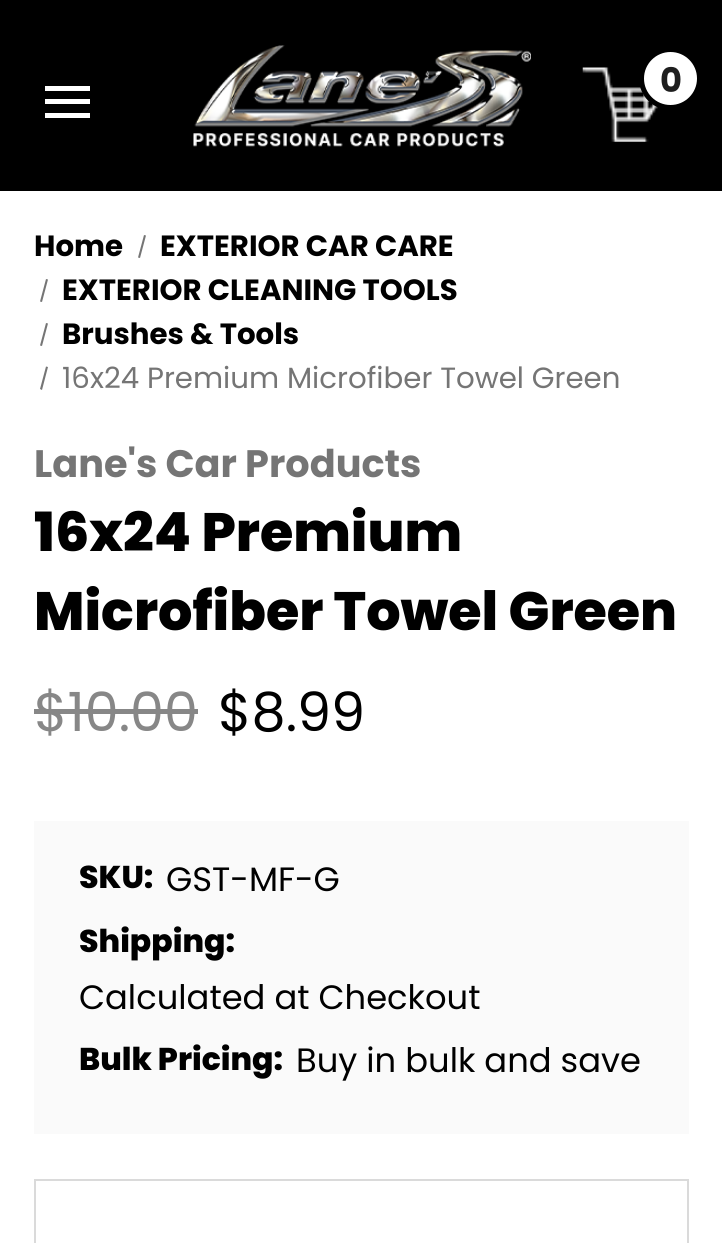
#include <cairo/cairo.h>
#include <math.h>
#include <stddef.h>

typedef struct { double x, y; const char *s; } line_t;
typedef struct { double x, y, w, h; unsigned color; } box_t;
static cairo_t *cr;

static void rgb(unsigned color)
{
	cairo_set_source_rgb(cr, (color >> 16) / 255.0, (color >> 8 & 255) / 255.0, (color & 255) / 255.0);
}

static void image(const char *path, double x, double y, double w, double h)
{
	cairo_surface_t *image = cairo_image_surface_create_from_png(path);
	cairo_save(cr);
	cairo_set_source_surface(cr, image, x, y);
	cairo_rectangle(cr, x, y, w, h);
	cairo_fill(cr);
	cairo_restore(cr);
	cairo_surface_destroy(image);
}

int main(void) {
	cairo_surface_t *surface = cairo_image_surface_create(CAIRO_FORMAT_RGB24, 722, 1243);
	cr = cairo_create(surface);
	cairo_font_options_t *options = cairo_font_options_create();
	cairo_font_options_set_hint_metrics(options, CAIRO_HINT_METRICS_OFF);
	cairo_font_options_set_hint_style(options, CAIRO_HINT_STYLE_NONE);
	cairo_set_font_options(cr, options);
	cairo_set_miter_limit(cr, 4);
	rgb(0xffffff);
	cairo_paint(cr);
	rgb(0x000000);
	cairo_rectangle(cr, 0, 0, 722, 191);
	cairo_fill(cr);
	image("img/1.png", 193, 45, 338, 102);
	image("img/2.png", 582, 67, 76, 75);
	rgb(0xffffff);
	cairo_arc(cr, 670.5, 78.5, 29, 0, 2 * M_PI);
	cairo_fill_preserve(cr);
	rgb(0x000000);
	cairo_set_line_width(cr, 5);
	cairo_stroke(cr);
	{
		static const box_t items[] = {
			{45, 99, 45, 5, 0xffffff},
			{45, 86, 45, 5, 0xffffff},
			{45, 113, 45, 5, 0xffffff},
		};
		for (size_t i = 0; i < sizeof items / sizeof *items; i++) {
			rgb(items[i].color);
			cairo_rectangle(cr, items[i].x, items[i].y, items[i].w, items[i].h);
			cairo_fill(cr);
		}
	}
	rgb(0x757575);
	cairo_new_path(cr);
	cairo_move_to(cr, 144, 235);
	cairo_line_to(cr, 146, 235.5);
	cairo_line_to(cr, 140, 258);
	cairo_line_to(cr, 138, 257.5);
	cairo_close_path(cr);
	cairo_fill(cr);
	cairo_new_path(cr);
	cairo_move_to(cr, 46, 279);
	cairo_line_to(cr, 48, 279.5);
	cairo_line_to(cr, 42, 302);
	cairo_line_to(cr, 40, 301.5);
	cairo_close_path(cr);
	cairo_fill(cr);
	cairo_new_path(cr);
	cairo_move_to(cr, 46, 323);
	cairo_line_to(cr, 48, 323.5);
	cairo_line_to(cr, 42, 346);
	cairo_line_to(cr, 40, 345.5);
	cairo_close_path(cr);
	cairo_fill(cr);
	cairo_new_path(cr);
	cairo_move_to(cr, 46, 366.5);
	cairo_line_to(cr, 48, 367);
	cairo_line_to(cr, 42, 390);
	cairo_line_to(cr, 40, 389);
	cairo_close_path(cr);
	cairo_fill(cr);
	rgb(0x878787);
	cairo_rectangle(cr, 34, 709, 164, 5);
	cairo_fill(cr);
	rgb(0xfafafa);
	cairo_rectangle(cr, 34, 821, 655, 313);
	cairo_fill(cr);
	cairo_rectangle(cr, 35, 1180, 653, 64);
	rgb(0xdadada);
	cairo_set_line_width(cr, 2);
	cairo_stroke(cr);
	cairo_select_font_face(cr, "Poppins", CAIRO_FONT_SLANT_NORMAL, CAIRO_FONT_WEIGHT_BOLD);
	cairo_set_font_size(cr, 33.75);
	rgb(0x1e1e1e);
	cairo_move_to(cr, 660, 92);
	cairo_show_text(cr, "0");
	cairo_set_font_size(cr, 29.25);
	rgb(0x000000);
	{
		static const line_t items[] = {
			{34, 256, "Home"},
			{160, 256, "EXTERIOR CAR CARE"},
			{62, 300, "EXTERIOR CLEANING TOOLS"},
			{62, 344, "Brushes & Tools"},
		};
		for (size_t i = 0; i < sizeof items / sizeof *items; i++) {
			cairo_move_to(cr, items[i].x, items[i].y);
			cairo_show_text(cr, items[i].s);
		}
	}
	cairo_select_font_face(cr, "Poppins", CAIRO_FONT_SLANT_NORMAL, CAIRO_FONT_WEIGHT_NORMAL);
	rgb(0x757575);
	cairo_move_to(cr, 62, 388);
	cairo_show_text(cr, "16x24 Premium Microfiber Towel Green");
	cairo_select_font_face(cr, "Poppins", CAIRO_FONT_SLANT_NORMAL, CAIRO_FONT_WEIGHT_BOLD);
	cairo_set_font_size(cr, 38.25);
	cairo_move_to(cr, 34, 477);
	cairo_show_text(cr, "Lane's Car Products");
	cairo_select_font_face(cr, "Poppins ExtraBold", CAIRO_FONT_SLANT_NORMAL, CAIRO_FONT_WEIGHT_NORMAL);
	cairo_set_font_size(cr, 54);
	rgb(0x000000);
	cairo_move_to(cr, 34, 551);
	cairo_show_text(cr, "16x24 Premium");
	cairo_move_to(cr, 34, 630);
	cairo_show_text(cr, "Microfiber Towel Green");
	cairo_select_font_face(cr, "Poppins", CAIRO_FONT_SLANT_NORMAL, CAIRO_FONT_WEIGHT_NORMAL);
	rgb(0x878787);
	cairo_move_to(cr, 34, 731);
	cairo_show_text(cr, "$10.00");
	rgb(0x000000);
	cairo_move_to(cr, 218, 731);
	cairo_show_text(cr, "$8.99");
	cairo_select_font_face(cr, "Poppins ExtraBold", CAIRO_FONT_SLANT_NORMAL, CAIRO_FONT_WEIGHT_NORMAL);
	cairo_set_font_size(cr, 31.5);
	cairo_move_to(cr, 79, 888);
	cairo_show_text(cr, "SKU:");
	cairo_select_font_face(cr, "Poppins", CAIRO_FONT_SLANT_NORMAL, CAIRO_FONT_WEIGHT_NORMAL);
	cairo_set_font_size(cr, 33.75);
	cairo_move_to(cr, 166, 891);
	cairo_show_text(cr, "GST-MF-G");
	cairo_select_font_face(cr, "Poppins ExtraBold", CAIRO_FONT_SLANT_NORMAL, CAIRO_FONT_WEIGHT_NORMAL);
	cairo_set_font_size(cr, 31.5);
	cairo_move_to(cr, 79, 952);
	cairo_show_text(cr, "Shipping:");
	cairo_select_font_face(cr, "Poppins", CAIRO_FONT_SLANT_NORMAL, CAIRO_FONT_WEIGHT_NORMAL);
	cairo_set_font_size(cr, 33.75);
	cairo_move_to(cr, 79, 1009);
	cairo_show_text(cr, "Calculated at Checkout");
	cairo_select_font_face(cr, "Poppins ExtraBold", CAIRO_FONT_SLANT_NORMAL, CAIRO_FONT_WEIGHT_NORMAL);
	cairo_set_font_size(cr, 31.5);
	cairo_move_to(cr, 79, 1070);
	cairo_show_text(cr, "Bulk Pricing:");
	cairo_select_font_face(cr, "Poppins", CAIRO_FONT_SLANT_NORMAL, CAIRO_FONT_WEIGHT_NORMAL);
	cairo_set_font_size(cr, 33.75);
	cairo_move_to(cr, 296, 1072);
	cairo_show_text(cr, "Buy in bulk and save");
	cairo_surface_write_to_png(surface, "page.png");
	cairo_font_options_destroy(options);
	cairo_destroy(cr);
	cairo_surface_destroy(surface);
	return 0;
}
